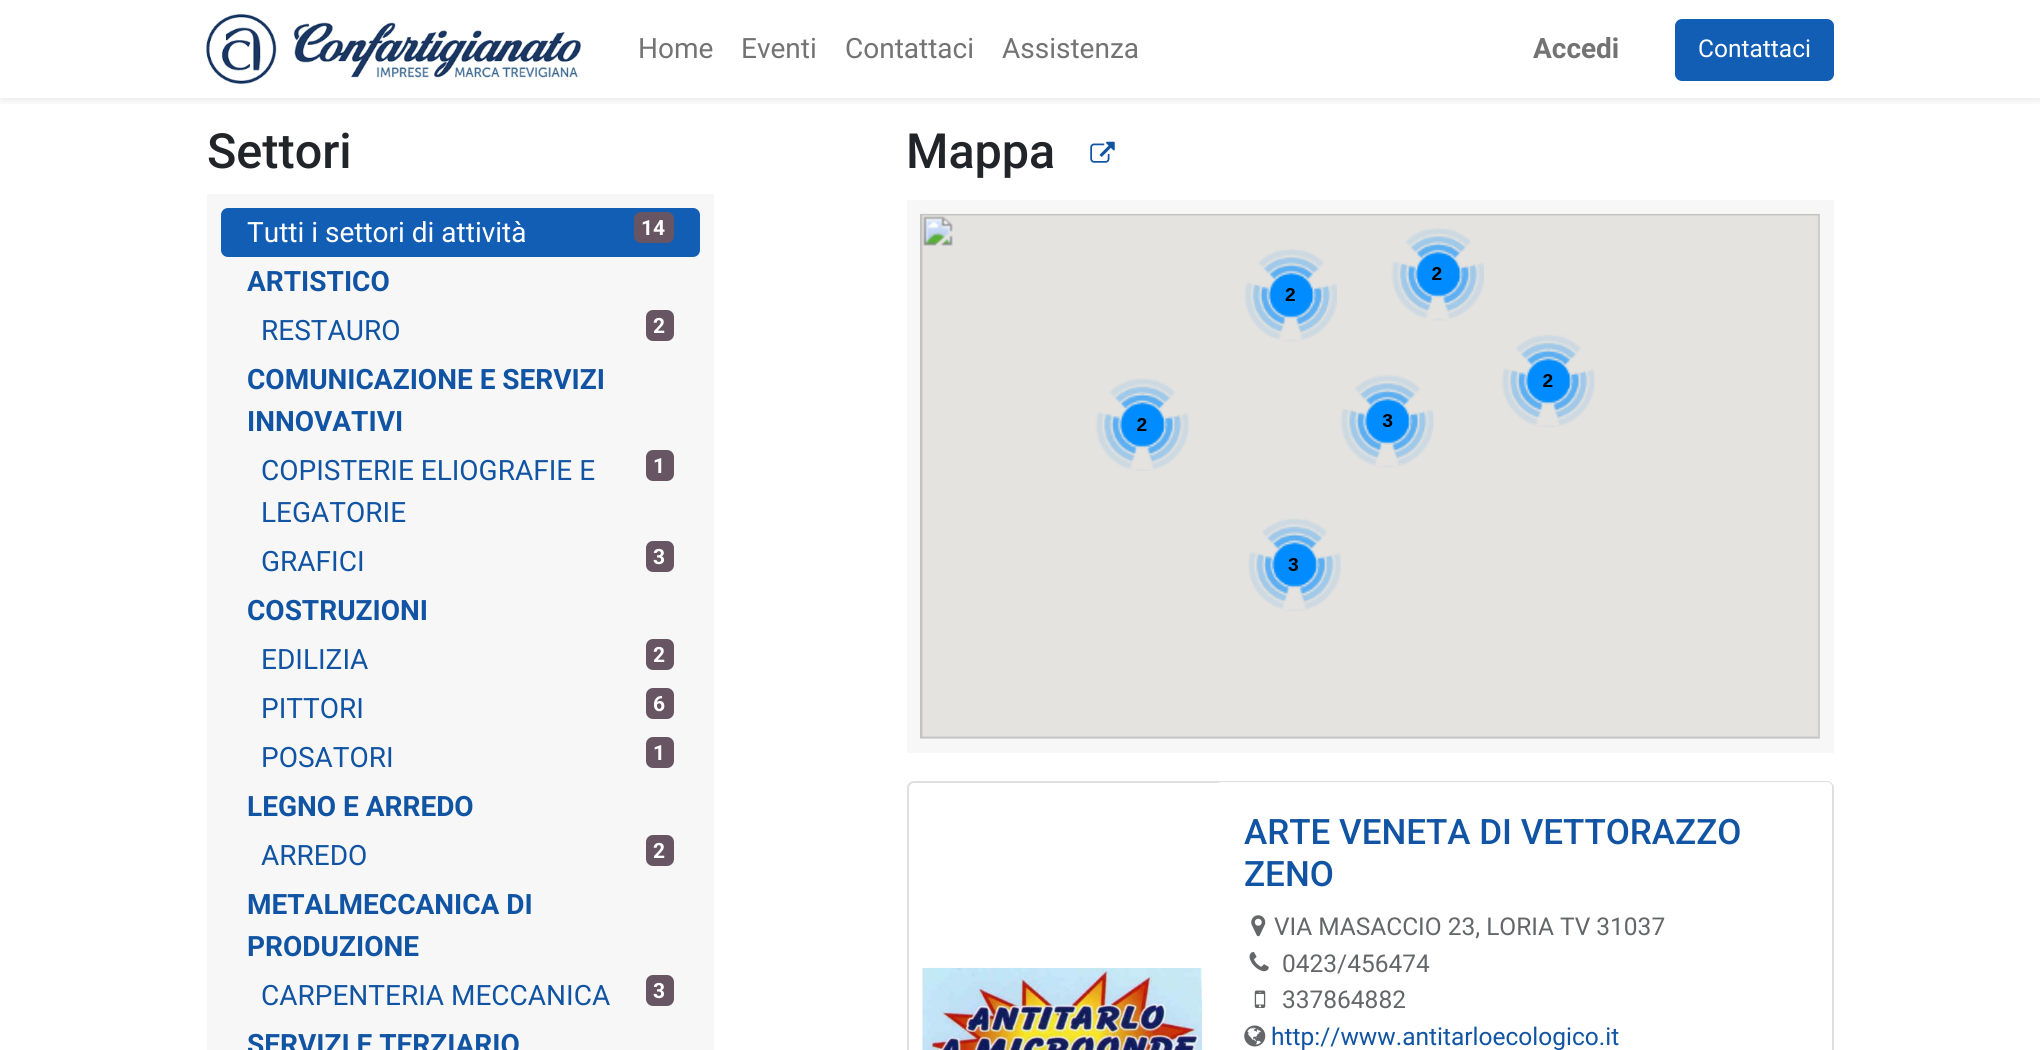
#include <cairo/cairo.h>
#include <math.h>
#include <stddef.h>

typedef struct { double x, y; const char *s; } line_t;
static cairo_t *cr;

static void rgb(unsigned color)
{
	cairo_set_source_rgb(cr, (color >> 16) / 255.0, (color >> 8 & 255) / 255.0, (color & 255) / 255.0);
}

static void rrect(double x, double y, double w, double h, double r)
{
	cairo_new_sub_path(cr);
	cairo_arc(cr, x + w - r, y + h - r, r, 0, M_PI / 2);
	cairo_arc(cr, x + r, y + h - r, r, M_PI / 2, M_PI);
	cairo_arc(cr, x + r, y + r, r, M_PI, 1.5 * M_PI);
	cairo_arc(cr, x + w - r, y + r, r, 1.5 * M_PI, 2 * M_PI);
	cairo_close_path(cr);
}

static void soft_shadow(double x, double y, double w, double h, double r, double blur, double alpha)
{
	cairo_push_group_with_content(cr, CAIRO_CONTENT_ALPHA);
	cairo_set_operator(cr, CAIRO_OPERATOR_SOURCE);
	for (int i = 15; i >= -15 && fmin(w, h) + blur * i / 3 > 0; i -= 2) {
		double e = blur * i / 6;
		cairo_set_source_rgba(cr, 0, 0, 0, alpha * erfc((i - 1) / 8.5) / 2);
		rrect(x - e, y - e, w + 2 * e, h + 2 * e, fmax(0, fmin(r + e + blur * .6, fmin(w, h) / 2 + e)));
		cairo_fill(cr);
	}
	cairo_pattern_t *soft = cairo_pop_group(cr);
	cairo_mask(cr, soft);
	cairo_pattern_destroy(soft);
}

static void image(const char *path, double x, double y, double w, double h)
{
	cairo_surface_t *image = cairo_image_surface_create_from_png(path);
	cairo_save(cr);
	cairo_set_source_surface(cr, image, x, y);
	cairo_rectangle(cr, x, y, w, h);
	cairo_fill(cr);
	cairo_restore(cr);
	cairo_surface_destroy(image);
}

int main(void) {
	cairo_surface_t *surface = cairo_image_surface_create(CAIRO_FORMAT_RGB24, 2040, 1050);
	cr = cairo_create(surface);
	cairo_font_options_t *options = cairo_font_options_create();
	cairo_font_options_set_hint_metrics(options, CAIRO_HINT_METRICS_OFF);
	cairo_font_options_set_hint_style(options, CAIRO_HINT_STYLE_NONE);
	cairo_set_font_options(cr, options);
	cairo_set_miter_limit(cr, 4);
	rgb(0xffffff);
	cairo_paint(cr);
	cairo_save(cr);
	cairo_rectangle(cr, 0, 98, 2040, 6);
	cairo_clip(cr);
	rgb(0x000000);
	soft_shadow(0, 4, 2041, 98, 0, 3.5, 0.07);
	cairo_restore(cr);
	image("img/1.png", 206, 14, 375, 70);
	rgb(0x135eb5);
	rrect(1676, 20, 157, 60, 6);
	cairo_fill_preserve(cr);
	cairo_stroke(cr);
	rgb(0xf7f7f7);
	cairo_rectangle(cr, 207, 194, 507, 856);
	cairo_fill(cr);
	rgb(0x135eb5);
	rrect(221, 208, 479, 49, 7);
	cairo_fill(cr);
	rgb(0x685563);
	rrect(634, 212, 40, 31, 7);
	cairo_fill(cr);
	rrect(646, 310, 28, 31, 7);
	cairo_fill(cr);
	rrect(646, 450, 28, 31, 7);
	cairo_fill(cr);
	rrect(646, 541, 28, 31, 7);
	cairo_fill(cr);
	rrect(646, 639, 28, 31, 7);
	cairo_fill(cr);
	rrect(646, 688, 28, 31, 7);
	cairo_fill(cr);
	rrect(646, 737, 28, 31, 7);
	cairo_fill(cr);
	rrect(646, 835, 28, 31, 7);
	cairo_fill(cr);
	rrect(646, 975, 28, 31, 7);
	cairo_fill(cr);
	image("img/2.png", 1090, 141, 25, 22);
	rgb(0xf7f7f7);
	cairo_rectangle(cr, 907, 200, 927, 553);
	cairo_fill(cr);
	image("img/3.png", 920, 213, 900, 526);
	rrect(908, 782, 925, 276, 6);
	rgb(0xdfdfdf);
	cairo_stroke(cr);
	image("img/4.png", 922, 967, 281, 83);
	cairo_set_source_rgba(cr, 1, 1, 1, 0.9);
	cairo_new_path(cr);
	cairo_move_to(cr, 1221, 782);
	cairo_line_to(cr, 1827, 782);
	cairo_curve_to(cr, 1830, 782, 1832, 784, 1832, 787);
	cairo_line_to(cr, 1832, 1050);
	cairo_line_to(cr, 1216, 1050);
	cairo_line_to(cr, 1216, 787);
	cairo_curve_to(cr, 1216, 784, 1218, 782, 1221, 782);
	cairo_close_path(cr);
	cairo_fill(cr);
	image("img/5.png", 1251, 915, 15, 22);
	image("img/6.png", 1249, 952, 20, 20);
	image("img/7.png", 1254, 990, 12, 18);
	image("img/8.png", 1244, 1025, 22, 22);
	cairo_select_font_face(cr, "Roboto", CAIRO_FONT_SLANT_NORMAL, CAIRO_FONT_WEIGHT_NORMAL);
	cairo_set_font_size(cr, 28);
	rgb(0x737373);
	{
		static const line_t items[] = {
			{638, 58, "Home"},
			{741, 58, "Eventi"},
			{845, 58, "Contattaci"},
			{1002, 58, "Assistenza"},
		};
		for (size_t i = 0; i < sizeof items / sizeof *items; i++) {
			cairo_move_to(cr, items[i].x, items[i].y);
			cairo_show_text(cr, items[i].s);
		}
	}
	cairo_select_font_face(cr, "Roboto", CAIRO_FONT_SLANT_NORMAL, CAIRO_FONT_WEIGHT_BOLD);
	cairo_move_to(cr, 1533, 58);
	cairo_show_text(cr, "Accedi");
	cairo_select_font_face(cr, "Roboto", CAIRO_FONT_SLANT_NORMAL, CAIRO_FONT_WEIGHT_NORMAL);
	cairo_set_font_size(cr, 24.5);
	rgb(0xffffff);
	cairo_move_to(cr, 1698, 57);
	cairo_show_text(cr, "Contattaci");
	cairo_select_font_face(cr, "Roboto Medium", CAIRO_FONT_SLANT_NORMAL, CAIRO_FONT_WEIGHT_NORMAL);
	cairo_set_font_size(cr, 48.5);
	rgb(0x212529);
	cairo_move_to(cr, 207, 168);
	cairo_show_text(cr, "Settori");
	cairo_select_font_face(cr, "Roboto", CAIRO_FONT_SLANT_NORMAL, CAIRO_FONT_WEIGHT_NORMAL);
	cairo_set_font_size(cr, 28);
	rgb(0xffffff);
	cairo_move_to(cr, 247, 242);
	cairo_show_text(cr, "Tutti i settori di attività");
	cairo_select_font_face(cr, "Roboto", CAIRO_FONT_SLANT_NORMAL, CAIRO_FONT_WEIGHT_BOLD);
	cairo_set_font_size(cr, 21);
	cairo_move_to(cr, 641, 235);
	cairo_show_text(cr, "14");
	cairo_set_font_size(cr, 28);
	rgb(0x1154a3);
	cairo_move_to(cr, 247, 291);
	cairo_show_text(cr, "ARTISTICO");
	cairo_select_font_face(cr, "Roboto", CAIRO_FONT_SLANT_NORMAL, CAIRO_FONT_WEIGHT_NORMAL);
	cairo_move_to(cr, 261, 340);
	cairo_show_text(cr, "RESTAURO");
	cairo_select_font_face(cr, "Roboto", CAIRO_FONT_SLANT_NORMAL, CAIRO_FONT_WEIGHT_BOLD);
	cairo_set_font_size(cr, 21);
	rgb(0xffffff);
	cairo_move_to(cr, 653, 333);
	cairo_show_text(cr, "2");
	cairo_set_font_size(cr, 28);
	rgb(0x1154a3);
	cairo_move_to(cr, 247, 389);
	cairo_show_text(cr, "COMUNICAZIONE E SERVIZI");
	cairo_move_to(cr, 247, 431);
	cairo_show_text(cr, "INNOVATIVI");
	cairo_select_font_face(cr, "Roboto", CAIRO_FONT_SLANT_NORMAL, CAIRO_FONT_WEIGHT_NORMAL);
	cairo_move_to(cr, 261, 480);
	cairo_show_text(cr, "COPISTERIE ELIOGRAFIE E");
	cairo_select_font_face(cr, "Roboto", CAIRO_FONT_SLANT_NORMAL, CAIRO_FONT_WEIGHT_BOLD);
	cairo_set_font_size(cr, 21);
	rgb(0xffffff);
	cairo_move_to(cr, 653, 473);
	cairo_show_text(cr, "1");
	cairo_select_font_face(cr, "Roboto", CAIRO_FONT_SLANT_NORMAL, CAIRO_FONT_WEIGHT_NORMAL);
	cairo_set_font_size(cr, 28);
	rgb(0x1154a3);
	cairo_move_to(cr, 261, 522);
	cairo_show_text(cr, "LEGATORIE");
	cairo_move_to(cr, 261, 571);
	cairo_show_text(cr, "GRAFICI");
	cairo_select_font_face(cr, "Roboto", CAIRO_FONT_SLANT_NORMAL, CAIRO_FONT_WEIGHT_BOLD);
	cairo_set_font_size(cr, 21);
	rgb(0xffffff);
	cairo_move_to(cr, 653, 564);
	cairo_show_text(cr, "3");
	cairo_set_font_size(cr, 28);
	rgb(0x1154a3);
	cairo_move_to(cr, 247, 620);
	cairo_show_text(cr, "COSTRUZIONI");
	cairo_select_font_face(cr, "Roboto", CAIRO_FONT_SLANT_NORMAL, CAIRO_FONT_WEIGHT_NORMAL);
	cairo_move_to(cr, 261, 669);
	cairo_show_text(cr, "EDILIZIA");
	cairo_select_font_face(cr, "Roboto", CAIRO_FONT_SLANT_NORMAL, CAIRO_FONT_WEIGHT_BOLD);
	cairo_set_font_size(cr, 21);
	rgb(0xffffff);
	cairo_move_to(cr, 653, 662);
	cairo_show_text(cr, "2");
	cairo_select_font_face(cr, "Roboto", CAIRO_FONT_SLANT_NORMAL, CAIRO_FONT_WEIGHT_NORMAL);
	cairo_set_font_size(cr, 28);
	rgb(0x1154a3);
	cairo_move_to(cr, 261, 718);
	cairo_show_text(cr, "PITTORI");
	cairo_select_font_face(cr, "Roboto", CAIRO_FONT_SLANT_NORMAL, CAIRO_FONT_WEIGHT_BOLD);
	cairo_set_font_size(cr, 21);
	rgb(0xffffff);
	cairo_move_to(cr, 653, 711);
	cairo_show_text(cr, "6");
	cairo_select_font_face(cr, "Roboto", CAIRO_FONT_SLANT_NORMAL, CAIRO_FONT_WEIGHT_NORMAL);
	cairo_set_font_size(cr, 28);
	rgb(0x1154a3);
	cairo_move_to(cr, 261, 767);
	cairo_show_text(cr, "POSATORI");
	cairo_select_font_face(cr, "Roboto", CAIRO_FONT_SLANT_NORMAL, CAIRO_FONT_WEIGHT_BOLD);
	cairo_set_font_size(cr, 21);
	rgb(0xffffff);
	cairo_move_to(cr, 653, 760);
	cairo_show_text(cr, "1");
	cairo_set_font_size(cr, 28);
	rgb(0x1154a3);
	cairo_move_to(cr, 247, 816);
	cairo_show_text(cr, "LEGNO E ARREDO");
	cairo_select_font_face(cr, "Roboto", CAIRO_FONT_SLANT_NORMAL, CAIRO_FONT_WEIGHT_NORMAL);
	cairo_move_to(cr, 261, 865);
	cairo_show_text(cr, "ARREDO");
	cairo_select_font_face(cr, "Roboto", CAIRO_FONT_SLANT_NORMAL, CAIRO_FONT_WEIGHT_BOLD);
	cairo_set_font_size(cr, 21);
	rgb(0xffffff);
	cairo_move_to(cr, 653, 858);
	cairo_show_text(cr, "2");
	cairo_set_font_size(cr, 28);
	rgb(0x1154a3);
	cairo_move_to(cr, 247, 914);
	cairo_show_text(cr, "METALMECCANICA DI");
	cairo_move_to(cr, 247, 956);
	cairo_show_text(cr, "PRODUZIONE");
	cairo_select_font_face(cr, "Roboto", CAIRO_FONT_SLANT_NORMAL, CAIRO_FONT_WEIGHT_NORMAL);
	cairo_move_to(cr, 261, 1005);
	cairo_show_text(cr, "CARPENTERIA MECCANICA");
	cairo_select_font_face(cr, "Roboto", CAIRO_FONT_SLANT_NORMAL, CAIRO_FONT_WEIGHT_BOLD);
	cairo_set_font_size(cr, 21);
	rgb(0xffffff);
	cairo_move_to(cr, 653, 998);
	cairo_show_text(cr, "3");
	cairo_set_font_size(cr, 28);
	rgb(0x1154a3);
	cairo_move_to(cr, 247, 1054);
	cairo_show_text(cr, "SERVIZI E TERZIARIO");
	cairo_select_font_face(cr, "Roboto Medium", CAIRO_FONT_SLANT_NORMAL, CAIRO_FONT_WEIGHT_NORMAL);
	cairo_set_font_size(cr, 48.5);
	rgb(0x212529);
	cairo_move_to(cr, 906, 168);
	cairo_show_text(cr, "Mappa");
	cairo_set_font_size(cr, 35);
	rgb(0x1154a3);
	cairo_move_to(cr, 1244, 844);
	cairo_show_text(cr, "ARTE VENETA DI VETTORAZZO");
	cairo_move_to(cr, 1244, 886);
	cairo_show_text(cr, "ZENO");
	cairo_select_font_face(cr, "Roboto", CAIRO_FONT_SLANT_NORMAL, CAIRO_FONT_WEIGHT_NORMAL);
	cairo_set_font_size(cr, 24.5);
	rgb(0x646669);
	{
		static const line_t items[] = {
			{1274, 935, "VIA MASACCIO 23, LORIA TV 31037"},
			{1282, 972, "0423/456474"},
			{1282, 1008, "337864882"},
		};
		for (size_t i = 0; i < sizeof items / sizeof *items; i++) {
			cairo_move_to(cr, items[i].x, items[i].y);
			cairo_show_text(cr, items[i].s);
		}
	}
	rgb(0x1154a3);
	cairo_move_to(cr, 1271, 1045);
	cairo_show_text(cr, "http://www.antitarloecologico.it");
	cairo_surface_write_to_png(surface, "page.png");
	cairo_font_options_destroy(options);
	cairo_destroy(cr);
	cairo_surface_destroy(surface);
	return 0;
}
